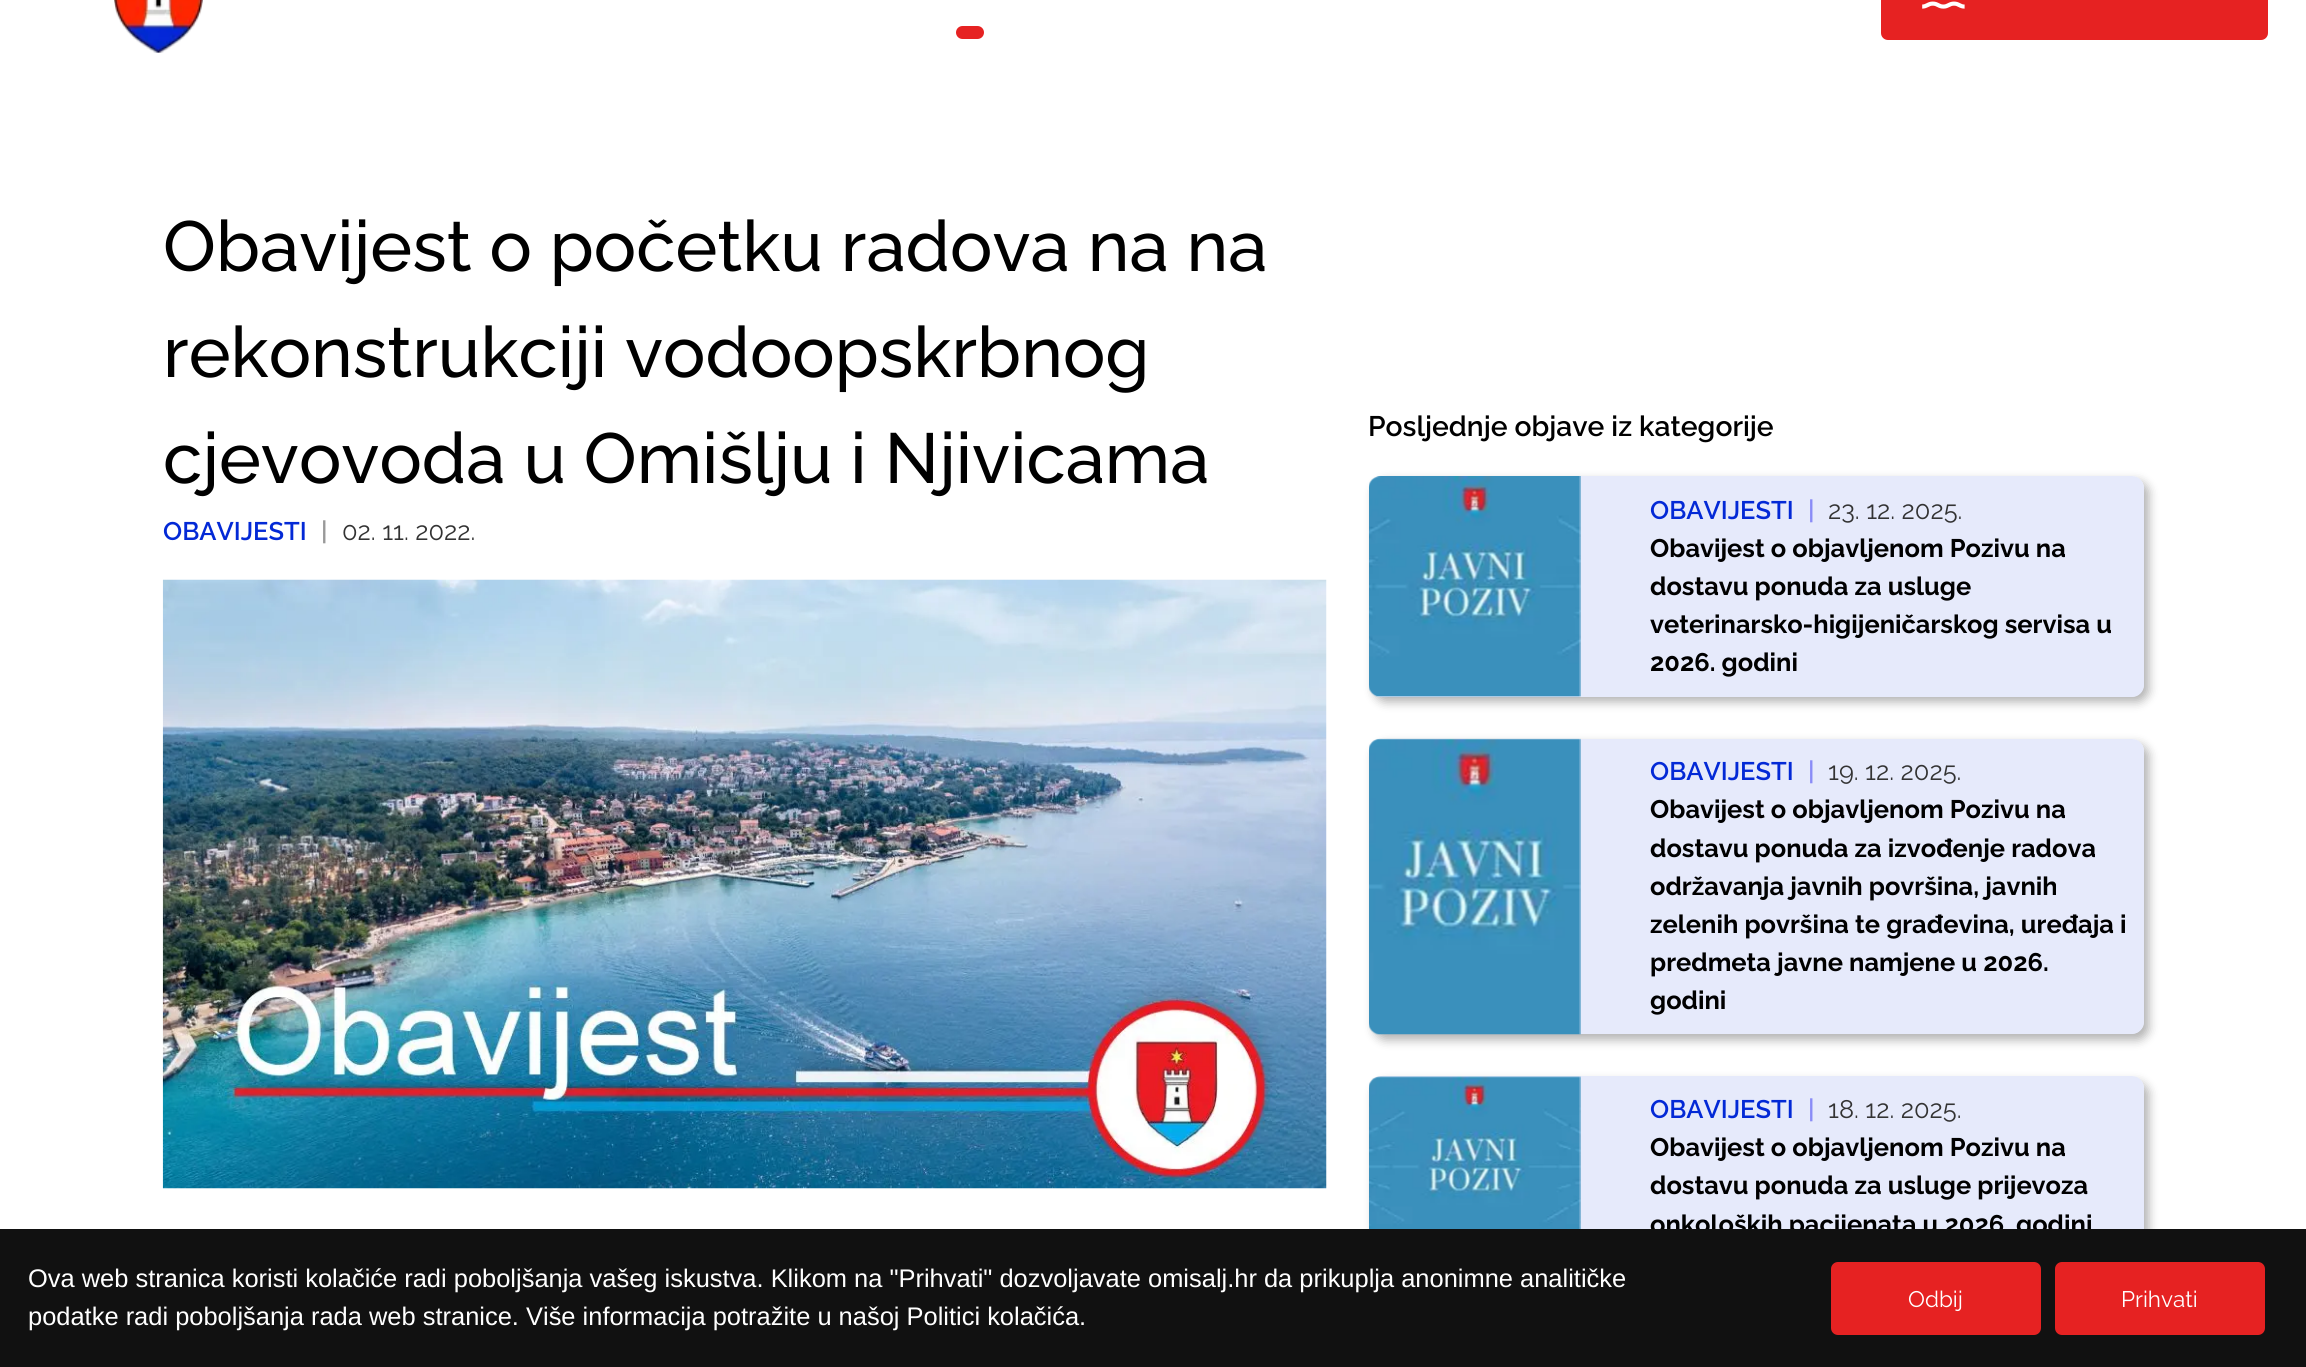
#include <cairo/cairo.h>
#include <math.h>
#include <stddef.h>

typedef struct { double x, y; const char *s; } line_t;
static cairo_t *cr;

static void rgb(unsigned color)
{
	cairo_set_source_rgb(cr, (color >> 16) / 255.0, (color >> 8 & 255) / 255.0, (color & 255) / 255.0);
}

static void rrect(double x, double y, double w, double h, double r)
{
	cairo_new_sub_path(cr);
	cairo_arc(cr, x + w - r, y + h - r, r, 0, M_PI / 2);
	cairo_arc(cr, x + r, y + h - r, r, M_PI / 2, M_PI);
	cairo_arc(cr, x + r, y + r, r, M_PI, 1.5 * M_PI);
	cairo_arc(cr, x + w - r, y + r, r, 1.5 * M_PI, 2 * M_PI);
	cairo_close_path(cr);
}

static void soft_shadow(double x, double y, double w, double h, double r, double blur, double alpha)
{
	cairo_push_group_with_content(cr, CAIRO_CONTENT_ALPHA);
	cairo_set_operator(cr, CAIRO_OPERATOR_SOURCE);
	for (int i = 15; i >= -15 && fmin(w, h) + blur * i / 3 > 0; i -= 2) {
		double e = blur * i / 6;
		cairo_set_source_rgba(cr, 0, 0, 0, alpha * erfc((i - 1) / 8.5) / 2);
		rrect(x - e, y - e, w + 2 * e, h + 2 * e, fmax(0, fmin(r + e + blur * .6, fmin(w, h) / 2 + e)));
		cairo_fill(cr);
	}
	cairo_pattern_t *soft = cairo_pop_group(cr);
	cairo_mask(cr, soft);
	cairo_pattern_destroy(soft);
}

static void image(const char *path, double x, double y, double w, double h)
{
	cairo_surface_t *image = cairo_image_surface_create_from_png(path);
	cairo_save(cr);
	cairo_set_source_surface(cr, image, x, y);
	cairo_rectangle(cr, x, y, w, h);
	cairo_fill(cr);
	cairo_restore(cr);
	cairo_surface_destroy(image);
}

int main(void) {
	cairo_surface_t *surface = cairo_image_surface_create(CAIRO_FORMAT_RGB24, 2306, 1367);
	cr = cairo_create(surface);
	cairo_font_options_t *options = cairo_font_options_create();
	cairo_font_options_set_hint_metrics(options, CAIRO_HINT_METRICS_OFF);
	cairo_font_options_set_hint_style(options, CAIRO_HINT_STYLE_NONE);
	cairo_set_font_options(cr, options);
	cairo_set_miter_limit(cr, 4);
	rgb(0xffffff);
	cairo_paint(cr);
	image("img/1.png", 114, 0, 89, 53);
	rgb(0xe62222);
	rrect(956, 26, 28, 13, 6.5);
	cairo_fill(cr);
	rrect(1881, -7, 387, 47, 7);
	cairo_fill(cr);
	image("img/2.png", 1922, 1, 43, 8);
	image("img/3.png", 162, 579, 1165, 610);
	cairo_save(cr);
	cairo_set_fill_rule(cr, CAIRO_FILL_RULE_EVEN_ODD);
	cairo_new_path(cr);
	cairo_move_to(cr, 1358, 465);
	cairo_line_to(cr, 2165, 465);
	cairo_line_to(cr, 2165, 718);
	cairo_line_to(cr, 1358, 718);
	cairo_close_path(cr);
	cairo_move_to(cr, 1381, 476);
	cairo_line_to(cr, 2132, 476);
	cairo_curve_to(cr, 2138.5, 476, 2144, 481.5, 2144, 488);
	cairo_line_to(cr, 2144, 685);
	cairo_curve_to(cr, 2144, 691.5, 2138.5, 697, 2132, 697);
	cairo_line_to(cr, 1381, 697);
	cairo_curve_to(cr, 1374.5, 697, 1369, 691.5, 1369, 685);
	cairo_line_to(cr, 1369, 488);
	cairo_curve_to(cr, 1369, 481.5, 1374.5, 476, 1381, 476);
	cairo_close_path(cr);
	cairo_clip(cr);
	rgb(0x000000);
	soft_shadow(1374, 481, 775, 221, 12, 5, 0.3);
	cairo_restore(cr);
	cairo_set_source_rgba(cr, 0.012, 0.161, 0.839, 0.1);
	rrect(1369, 476, 775, 221, 12);
	cairo_fill(cr);
	image("img/4.png", 1369, 476, 212, 222);
	cairo_save(cr);
	cairo_set_fill_rule(cr, CAIRO_FILL_RULE_EVEN_ODD);
	cairo_new_path(cr);
	cairo_move_to(cr, 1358, 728);
	cairo_line_to(cr, 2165, 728);
	cairo_line_to(cr, 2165, 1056);
	cairo_line_to(cr, 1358, 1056);
	cairo_close_path(cr);
	cairo_move_to(cr, 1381, 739);
	cairo_line_to(cr, 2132, 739);
	cairo_curve_to(cr, 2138.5, 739, 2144, 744.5, 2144, 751);
	cairo_line_to(cr, 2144, 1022);
	cairo_curve_to(cr, 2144, 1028.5, 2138.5, 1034, 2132, 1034);
	cairo_line_to(cr, 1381, 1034);
	cairo_curve_to(cr, 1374.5, 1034, 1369, 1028.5, 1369, 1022);
	cairo_line_to(cr, 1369, 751);
	cairo_curve_to(cr, 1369, 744.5, 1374.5, 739, 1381, 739);
	cairo_close_path(cr);
	cairo_clip(cr);
	rgb(0x000000);
	soft_shadow(1374, 744, 775, 296, 12, 5, 0.3);
	cairo_restore(cr);
	rrect(1369, 739, 775, 295, 12);
	cairo_fill(cr);
	image("img/5.png", 1369, 738, 212, 297);
	cairo_save(cr);
	cairo_set_fill_rule(cr, CAIRO_FILL_RULE_EVEN_ODD);
	cairo_new_path(cr);
	cairo_move_to(cr, 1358, 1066);
	cairo_line_to(cr, 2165, 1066);
	cairo_line_to(cr, 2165, 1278);
	cairo_line_to(cr, 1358, 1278);
	cairo_close_path(cr);
	cairo_move_to(cr, 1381, 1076);
	cairo_line_to(cr, 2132, 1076);
	cairo_curve_to(cr, 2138.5, 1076, 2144, 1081.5, 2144, 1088);
	cairo_line_to(cr, 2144, 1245);
	cairo_curve_to(cr, 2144, 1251.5, 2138.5, 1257, 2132, 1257);
	cairo_line_to(cr, 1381, 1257);
	cairo_curve_to(cr, 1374.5, 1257, 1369, 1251.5, 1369, 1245);
	cairo_line_to(cr, 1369, 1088);
	cairo_curve_to(cr, 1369, 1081.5, 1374.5, 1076, 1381, 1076);
	cairo_close_path(cr);
	cairo_clip(cr);
	rgb(0x000000);
	soft_shadow(1374, 1082, 775, 180, 12, 5, 0.3);
	cairo_restore(cr);
	rrect(1369, 1076, 775, 181, 12);
	cairo_fill(cr);
	image("img/6.png", 1369, 1076, 212, 153);
	cairo_select_font_face(cr, "Raleway Medium", CAIRO_FONT_SLANT_NORMAL, CAIRO_FONT_WEIGHT_NORMAL);
	cairo_set_font_size(cr, 70.75);
	rgb(0x000000);
	{
		static const line_t items[] = {
			{163, 271, "Obavijest o početku radova na na"},
			{163, 377, "rekonstrukciji vodoopskrbnog"},
			{163, 483, "cjevovoda u Omišlju i Njivicama"},
		};
		for (size_t i = 0; i < sizeof items / sizeof *items; i++) {
			cairo_move_to(cr, items[i].x, items[i].y);
			cairo_show_text(cr, items[i].s);
		}
	}
	cairo_select_font_face(cr, "Raleway SemiBold", CAIRO_FONT_SLANT_NORMAL, CAIRO_FONT_WEIGHT_NORMAL);
	cairo_set_font_size(cr, 25.45);
	rgb(0x0329d6);
	cairo_move_to(cr, 163, 540);
	cairo_show_text(cr, "OBAVIJESTI");
	rgb(0x999999);
	cairo_move_to(cr, 321, 540);
	cairo_show_text(cr, "|");
	cairo_select_font_face(cr, "Raleway", CAIRO_FONT_SLANT_NORMAL, CAIRO_FONT_WEIGHT_NORMAL);
	rgb(0x333333);
	cairo_move_to(cr, 342, 540);
	cairo_show_text(cr, "02. 11. 2022.");
	cairo_select_font_face(cr, "Raleway SemiBold", CAIRO_FONT_SLANT_NORMAL, CAIRO_FONT_WEIGHT_NORMAL);
	cairo_set_font_size(cr, 28.25);
	rgb(0x000000);
	cairo_move_to(cr, 1368, 436);
	cairo_show_text(cr, "Posljednje objave iz kategorije");
	cairo_set_font_size(cr, 25.45);
	rgb(0x0329d6);
	cairo_move_to(cr, 1650, 519);
	cairo_show_text(cr, "OBAVIJESTI");
	rgb(0x8a8cf6);
	cairo_move_to(cr, 1808, 519);
	cairo_show_text(cr, "|");
	cairo_select_font_face(cr, "Raleway", CAIRO_FONT_SLANT_NORMAL, CAIRO_FONT_WEIGHT_NORMAL);
	rgb(0x333333);
	cairo_move_to(cr, 1828, 519);
	cairo_show_text(cr, "23. 12. 2025.");
	cairo_select_font_face(cr, "Raleway", CAIRO_FONT_SLANT_NORMAL, CAIRO_FONT_WEIGHT_BOLD);
	rgb(0x000000);
	{
		static const line_t items[] = {
			{1650, 557, "Obavijest o objavljenom Pozivu na"},
			{1650, 595, "dostavu ponuda za usluge"},
			{1650, 633, "veterinarsko-higijeničarskog servisa u"},
			{1650, 671, "2026. godini"},
		};
		for (size_t i = 0; i < sizeof items / sizeof *items; i++) {
			cairo_move_to(cr, items[i].x, items[i].y);
			cairo_show_text(cr, items[i].s);
		}
	}
	cairo_select_font_face(cr, "Raleway SemiBold", CAIRO_FONT_SLANT_NORMAL, CAIRO_FONT_WEIGHT_NORMAL);
	rgb(0x0329d6);
	cairo_move_to(cr, 1650, 780);
	cairo_show_text(cr, "OBAVIJESTI");
	rgb(0x8a8cf6);
	cairo_move_to(cr, 1808, 780);
	cairo_show_text(cr, "|");
	cairo_select_font_face(cr, "Raleway", CAIRO_FONT_SLANT_NORMAL, CAIRO_FONT_WEIGHT_NORMAL);
	rgb(0x333333);
	cairo_move_to(cr, 1828, 780);
	cairo_show_text(cr, "19. 12. 2025.");
	cairo_select_font_face(cr, "Raleway", CAIRO_FONT_SLANT_NORMAL, CAIRO_FONT_WEIGHT_BOLD);
	rgb(0x000000);
	{
		static const line_t items[] = {
			{1650, 818, "Obavijest o objavljenom Pozivu na"},
			{1650, 857, "dostavu ponuda za izvođenje radova"},
			{1650, 895, "održavanja javnih površina, javnih"},
			{1650, 933, "zelenih površina te građevina, uređaja i"},
			{1650, 971, "predmeta javne namjene u 2026."},
			{1650, 1009, "godini"},
		};
		for (size_t i = 0; i < sizeof items / sizeof *items; i++) {
			cairo_move_to(cr, items[i].x, items[i].y);
			cairo_show_text(cr, items[i].s);
		}
	}
	cairo_select_font_face(cr, "Raleway SemiBold", CAIRO_FONT_SLANT_NORMAL, CAIRO_FONT_WEIGHT_NORMAL);
	rgb(0x0329d6);
	cairo_move_to(cr, 1650, 1118);
	cairo_show_text(cr, "OBAVIJESTI");
	rgb(0x8a8cf6);
	cairo_move_to(cr, 1808, 1118);
	cairo_show_text(cr, "|");
	cairo_select_font_face(cr, "Raleway", CAIRO_FONT_SLANT_NORMAL, CAIRO_FONT_WEIGHT_NORMAL);
	rgb(0x333333);
	cairo_move_to(cr, 1828, 1118);
	cairo_show_text(cr, "18. 12. 2025.");
	cairo_select_font_face(cr, "Raleway", CAIRO_FONT_SLANT_NORMAL, CAIRO_FONT_WEIGHT_BOLD);
	rgb(0x000000);
	{
		static const line_t items[] = {
			{1650, 1156, "Obavijest o objavljenom Pozivu na"},
			{1650, 1194, "dostavu ponuda za usluge prijevoza"},
			{1650, 1233, "onkoloških pacijenata u 2026. godini"},
		};
		for (size_t i = 0; i < sizeof items / sizeof *items; i++) {
			cairo_move_to(cr, items[i].x, items[i].y);
			cairo_show_text(cr, items[i].s);
		}
	}
	rgb(0x111111);
	cairo_rectangle(cr, 0, 1229, 2306, 138);
	cairo_fill(cr);
	cairo_select_font_face(cr, "Liberation Sans", CAIRO_FONT_SLANT_NORMAL, CAIRO_FONT_WEIGHT_NORMAL);
	rgb(0xffffff);
	cairo_move_to(cr, 28, 1287);
	cairo_show_text(cr, "Ova web stranica koristi kolačiće radi poboljšanja vašeg iskustva. Klikom na \"Prihvati\" dozvoljavate omisalj.hr da prikuplja anonimne analitičke");
	cairo_move_to(cr, 28, 1325);
	cairo_show_text(cr, "podatke radi poboljšanja rada web stranice. Više informacija potražite u našoj Politici kolačića.");
	rgb(0xe62222);
	rrect(1831, 1262, 210, 73, 7);
	cairo_fill(cr);
	cairo_select_font_face(cr, "Raleway", CAIRO_FONT_SLANT_NORMAL, CAIRO_FONT_WEIGHT_NORMAL);
	cairo_set_font_size(cr, 22.5);
	rgb(0xffffff);
	cairo_move_to(cr, 1908, 1307);
	cairo_show_text(cr, "Odbij");
	rgb(0xe62222);
	rrect(2055, 1262, 210, 73, 7);
	cairo_fill(cr);
	rgb(0xffffff);
	cairo_move_to(cr, 2121, 1307);
	cairo_show_text(cr, "Prihvati");
	cairo_surface_write_to_png(surface, "page.png");
	cairo_font_options_destroy(options);
	cairo_destroy(cr);
	cairo_surface_destroy(surface);
	return 0;
}
